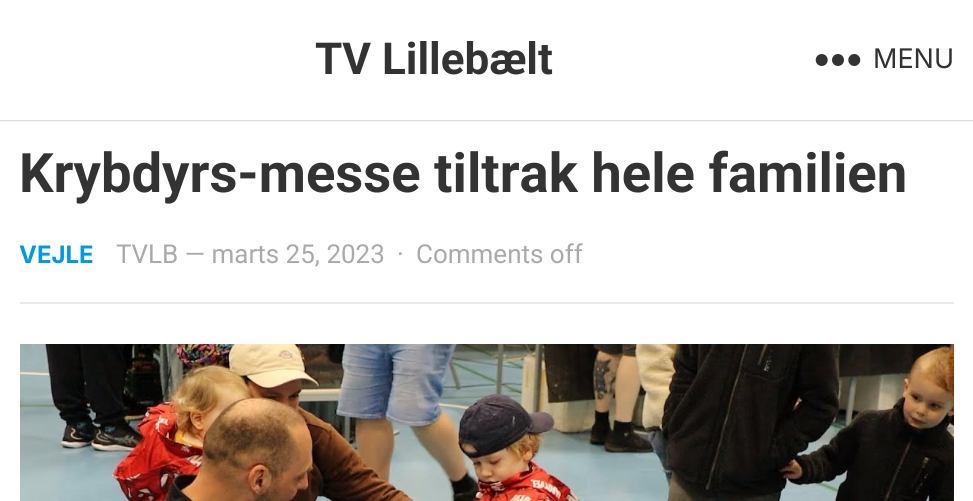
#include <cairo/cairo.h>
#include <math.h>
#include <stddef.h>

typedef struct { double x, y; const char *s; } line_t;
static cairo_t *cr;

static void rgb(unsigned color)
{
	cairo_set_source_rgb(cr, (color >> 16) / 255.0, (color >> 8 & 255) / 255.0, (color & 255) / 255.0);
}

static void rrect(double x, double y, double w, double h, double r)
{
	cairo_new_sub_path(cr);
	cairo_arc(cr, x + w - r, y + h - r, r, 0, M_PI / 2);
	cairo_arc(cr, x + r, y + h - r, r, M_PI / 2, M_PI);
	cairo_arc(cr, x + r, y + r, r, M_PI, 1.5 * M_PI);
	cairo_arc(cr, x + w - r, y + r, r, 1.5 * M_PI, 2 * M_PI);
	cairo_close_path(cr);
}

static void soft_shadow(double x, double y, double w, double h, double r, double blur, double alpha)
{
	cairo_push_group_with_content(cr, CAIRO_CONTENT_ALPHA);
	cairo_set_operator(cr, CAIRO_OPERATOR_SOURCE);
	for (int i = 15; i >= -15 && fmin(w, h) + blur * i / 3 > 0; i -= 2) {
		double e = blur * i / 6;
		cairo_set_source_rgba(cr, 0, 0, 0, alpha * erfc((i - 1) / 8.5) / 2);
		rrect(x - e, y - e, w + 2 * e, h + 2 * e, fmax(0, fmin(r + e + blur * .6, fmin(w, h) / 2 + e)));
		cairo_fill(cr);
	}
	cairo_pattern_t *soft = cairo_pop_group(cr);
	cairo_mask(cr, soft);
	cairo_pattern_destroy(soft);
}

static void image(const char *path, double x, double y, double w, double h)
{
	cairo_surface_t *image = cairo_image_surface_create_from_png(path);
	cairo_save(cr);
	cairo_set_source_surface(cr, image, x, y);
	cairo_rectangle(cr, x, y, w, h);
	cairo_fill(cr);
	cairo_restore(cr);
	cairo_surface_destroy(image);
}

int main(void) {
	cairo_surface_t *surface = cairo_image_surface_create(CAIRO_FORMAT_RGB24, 973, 501);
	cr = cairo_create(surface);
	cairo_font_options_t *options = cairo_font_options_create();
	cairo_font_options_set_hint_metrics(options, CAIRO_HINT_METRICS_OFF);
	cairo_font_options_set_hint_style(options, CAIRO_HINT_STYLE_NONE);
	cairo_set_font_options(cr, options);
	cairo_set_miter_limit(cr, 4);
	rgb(0xffffff);
	cairo_paint(cr);
	cairo_save(cr);
	cairo_rectangle(cr, 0, 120, 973, 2);
	cairo_clip(cr);
	rgb(0x000000);
	soft_shadow(0, 0, 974, 120, 0, 1, 0.4);
	cairo_restore(cr);
	image("img/1.png", 815, 54, 46, 12);
	rgb(0xe9e9e9);
	cairo_rectangle(cr, 20, 302, 934, 2);
	cairo_fill(cr);
	image("img/2.png", 20, 344, 934, 157);
	cairo_select_font_face(cr, "Roboto", CAIRO_FONT_SLANT_NORMAL, CAIRO_FONT_WEIGHT_BOLD);
	cairo_set_font_size(cr, 44);
	rgb(0x333333);
	cairo_move_to(cr, 315, 74);
	cairo_show_text(cr, "TV Lillebælt");
	cairo_select_font_face(cr, "Inter", CAIRO_FONT_SLANT_NORMAL, CAIRO_FONT_WEIGHT_NORMAL);
	cairo_set_font_size(cr, 27);
	cairo_move_to(cr, 873, 68);
	cairo_show_text(cr, "MENU");
	cairo_select_font_face(cr, "Roboto", CAIRO_FONT_SLANT_NORMAL, CAIRO_FONT_WEIGHT_BOLD);
	cairo_set_font_size(cr, 54.4);
	cairo_move_to(cr, 19, 192);
	cairo_show_text(cr, "Krybdyrs-messe tiltrak hele familien");
	cairo_select_font_face(cr, "Inter", CAIRO_FONT_SLANT_NORMAL, CAIRO_FONT_WEIGHT_BOLD);
	cairo_set_font_size(cr, 24);
	rgb(0x0099e5);
	cairo_move_to(cr, 19, 263);
	cairo_show_text(cr, "VEJLE");
	cairo_select_font_face(cr, "Roboto", CAIRO_FONT_SLANT_NORMAL, CAIRO_FONT_WEIGHT_NORMAL);
	cairo_set_font_size(cr, 26);
	rgb(0xaaaaaa);
	{
		static const line_t items[] = {
			{116, 263, "TVLB — marts 25, 2023"},
			{397, 263, "·"},
			{416, 263, "Comments off"},
		};
		for (size_t i = 0; i < sizeof items / sizeof *items; i++) {
			cairo_move_to(cr, items[i].x, items[i].y);
			cairo_show_text(cr, items[i].s);
		}
	}
	cairo_surface_write_to_png(surface, "page.png");
	cairo_font_options_destroy(options);
	cairo_destroy(cr);
	cairo_surface_destroy(surface);
	return 0;
}
